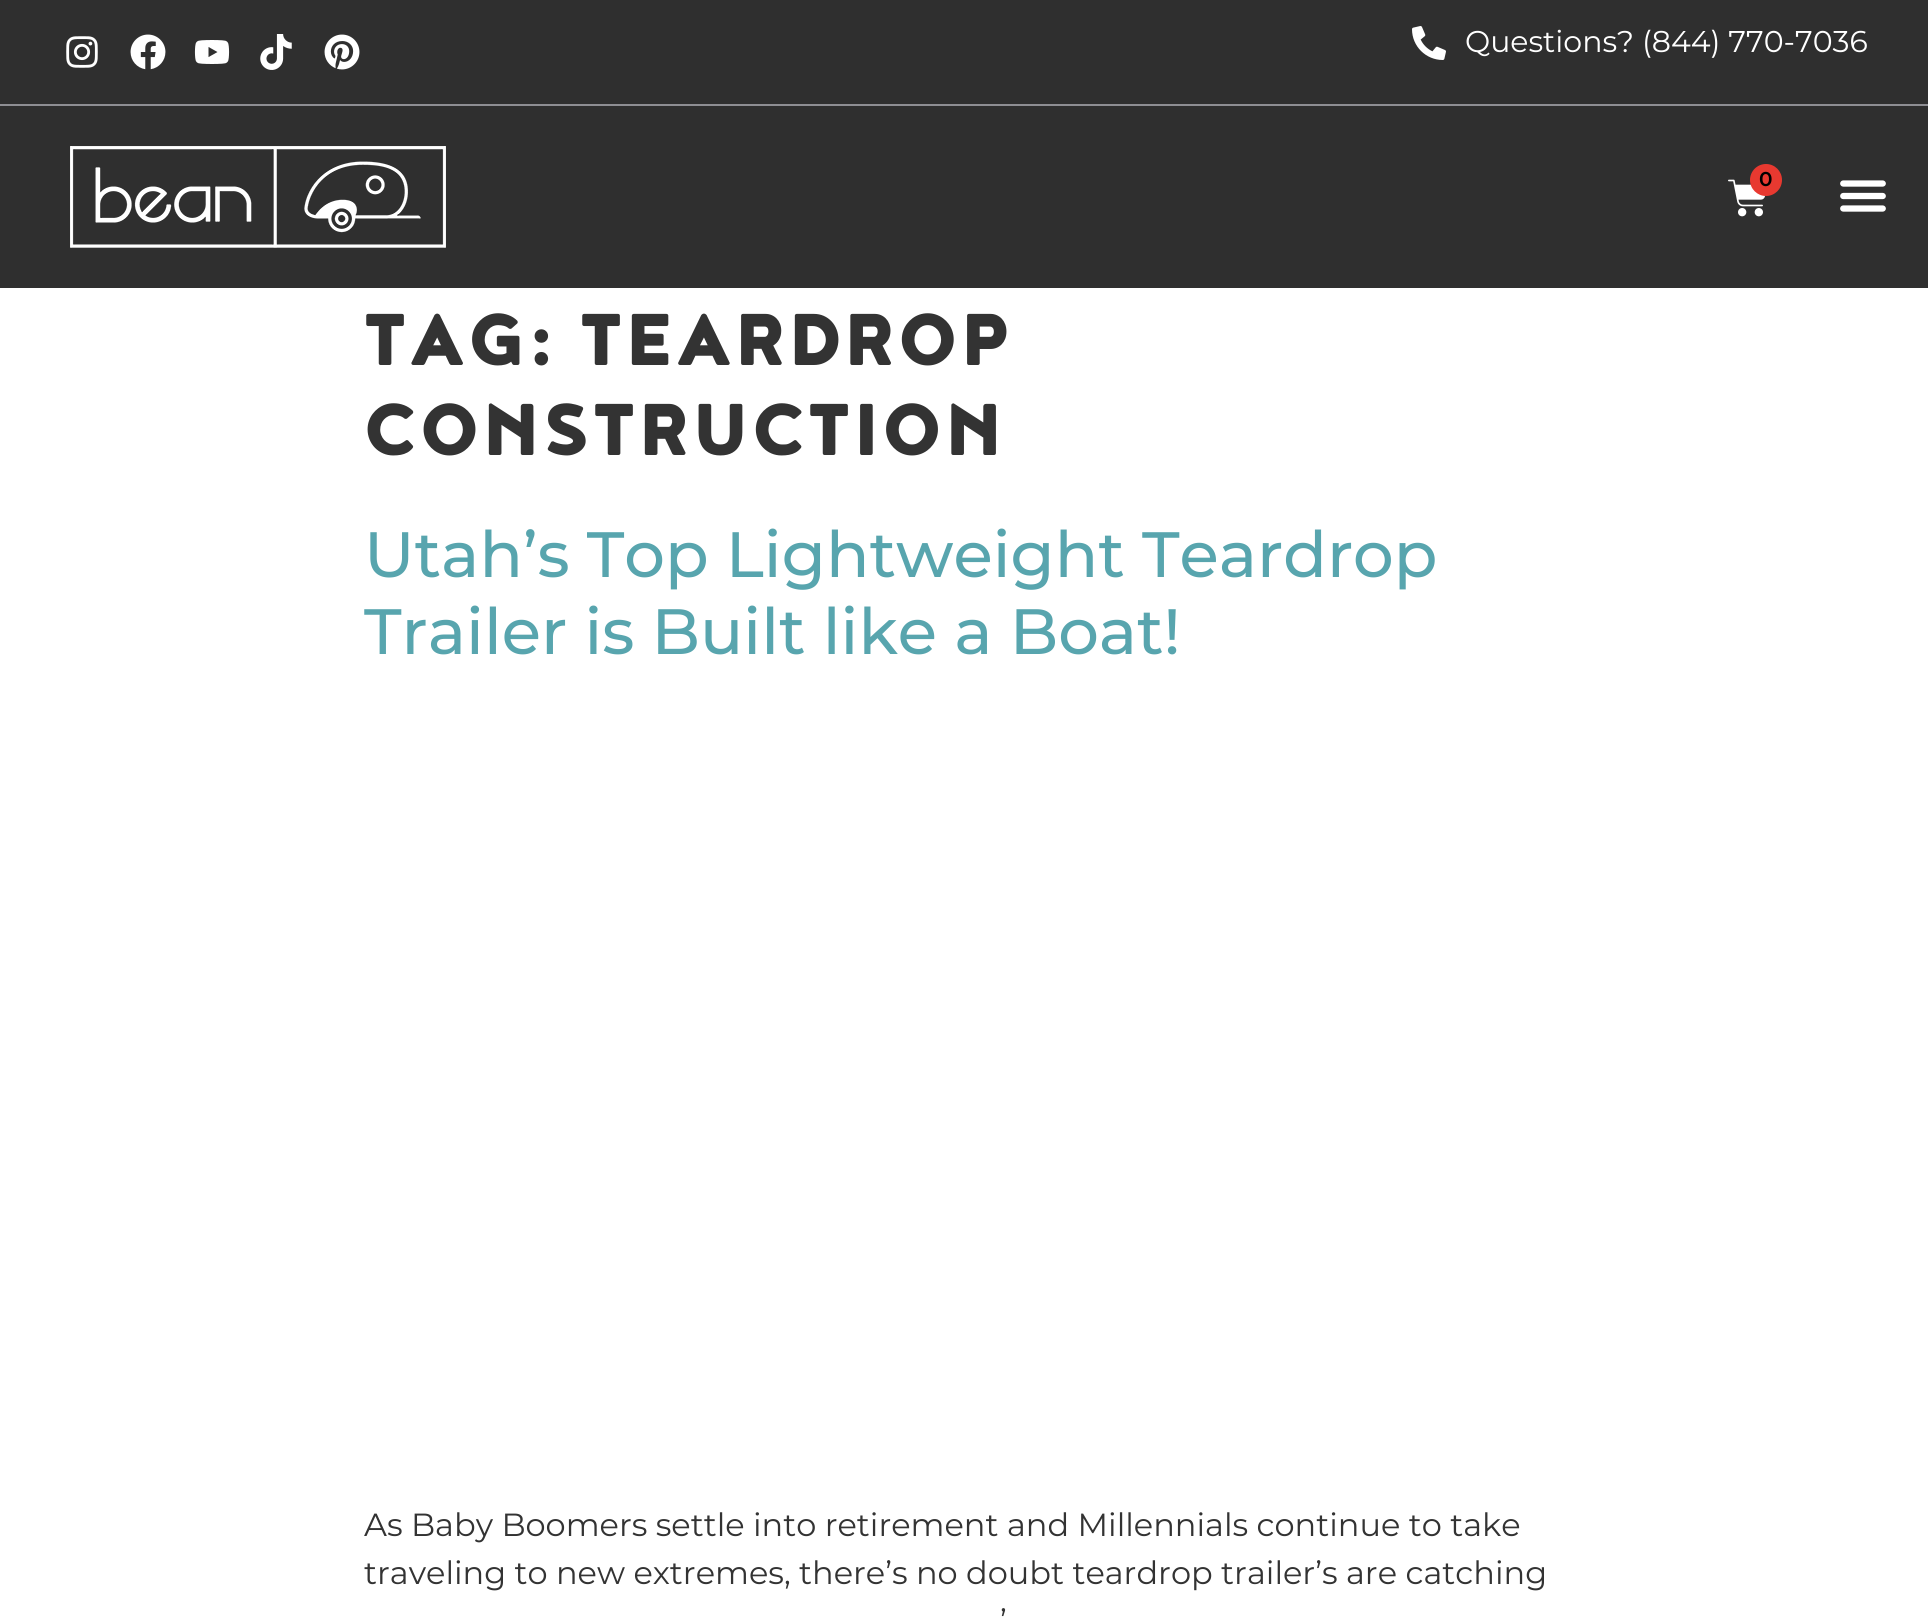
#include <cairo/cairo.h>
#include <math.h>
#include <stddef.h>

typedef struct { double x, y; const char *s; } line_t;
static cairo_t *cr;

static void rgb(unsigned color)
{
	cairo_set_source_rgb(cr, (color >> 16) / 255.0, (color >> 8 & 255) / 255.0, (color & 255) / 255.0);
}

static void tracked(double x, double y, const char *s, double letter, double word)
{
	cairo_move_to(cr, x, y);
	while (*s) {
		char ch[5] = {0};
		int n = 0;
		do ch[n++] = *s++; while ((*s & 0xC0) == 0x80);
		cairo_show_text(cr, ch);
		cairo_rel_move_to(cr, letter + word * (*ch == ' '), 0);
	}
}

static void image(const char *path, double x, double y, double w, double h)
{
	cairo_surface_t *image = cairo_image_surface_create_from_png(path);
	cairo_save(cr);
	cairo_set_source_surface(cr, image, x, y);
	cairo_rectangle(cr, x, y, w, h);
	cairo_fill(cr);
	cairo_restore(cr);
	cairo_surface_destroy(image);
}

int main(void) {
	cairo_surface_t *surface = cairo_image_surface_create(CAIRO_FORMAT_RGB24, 1928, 1617);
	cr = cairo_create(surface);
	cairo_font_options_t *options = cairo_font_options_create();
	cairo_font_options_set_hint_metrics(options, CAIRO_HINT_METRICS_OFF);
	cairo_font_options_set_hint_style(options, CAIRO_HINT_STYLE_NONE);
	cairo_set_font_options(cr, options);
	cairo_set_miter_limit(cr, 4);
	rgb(0xffffff);
	cairo_paint(cr);
	rgb(0x2f2f2f);
	cairo_rectangle(cr, 0, 0, 1928, 104);
	cairo_fill(cr);
	rgb(0x8e8e93);
	cairo_rectangle(cr, 0, 104, 1928, 2);
	cairo_fill(cr);
	image("img/1.png", 66, 36, 32, 32);
	image("img/2.png", 130, 34, 36, 36);
	image("img/3.png", 194, 40, 36, 24);
	image("img/4.png", 260, 34, 32, 36);
	image("img/5.png", 324, 34, 36, 36);
	image("img/6.png", 1412, 26, 34, 34);
	rgb(0x2f2f2f);
	cairo_rectangle(cr, 0, 106, 1928, 182);
	cairo_fill(cr);
	image("img/7.png", 70, 146, 376, 102);
	image("img/8.png", 1728, 179, 38, 38);
	rgb(0xe83930);
	cairo_arc(cr, 1766, 180, 16, 0, 2 * M_PI);
	cairo_fill(cr);
	image("img/9.png", 1840, 180, 46, 32);
	cairo_select_font_face(cr, "Montserrat", CAIRO_FONT_SLANT_NORMAL, CAIRO_FONT_WEIGHT_NORMAL);
	cairo_set_font_size(cr, 30);
	rgb(0xffffff);
	cairo_move_to(cr, 1465, 52);
	cairo_show_text(cr, "Questions? (844) 770-7036");
	cairo_select_font_face(cr, "Montserrat SemiBold", CAIRO_FONT_SLANT_NORMAL, CAIRO_FONT_WEIGHT_NORMAL);
	cairo_set_font_size(cr, 20);
	rgb(0x000000);
	cairo_move_to(cr, 1759, 186);
	cairo_show_text(cr, "0");
	cairo_select_font_face(cr, "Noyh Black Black", CAIRO_FONT_SLANT_NORMAL, CAIRO_FONT_WEIGHT_NORMAL);
	cairo_set_font_size(cr, 90);
	rgb(0x333333);
	tracked(364, 365, "TAG: TEARDROP", 4, 0);
	tracked(364, 455, "CONSTRUCTION", 4, 0);
	cairo_select_font_face(cr, "Montserrat Medium", CAIRO_FONT_SLANT_NORMAL, CAIRO_FONT_WEIGHT_NORMAL);
	cairo_set_font_size(cr, 64);
	rgb(0x58a5ae);
	cairo_move_to(cr, 364, 577);
	cairo_show_text(cr, "Utah’s Top Lightweight Teardrop");
	cairo_move_to(cr, 364, 654);
	cairo_show_text(cr, "Trailer is Built like a Boat!");
	cairo_select_font_face(cr, "Montserrat", CAIRO_FONT_SLANT_NORMAL, CAIRO_FONT_WEIGHT_NORMAL);
	cairo_set_font_size(cr, 32);
	rgb(0x333333);
	{
		static const line_t items[] = {
			{364, 1536, "As Baby Boomers settle into retirement and Millennials continue to take"},
			{364, 1584, "traveling to new extremes, there’s no doubt teardrop trailer’s are catching"},
			{1000, 1632, "’"},
		};
		for (size_t i = 0; i < sizeof items / sizeof *items; i++) {
			cairo_move_to(cr, items[i].x, items[i].y);
			cairo_show_text(cr, items[i].s);
		}
	}
	cairo_surface_write_to_png(surface, "page.png");
	cairo_font_options_destroy(options);
	cairo_destroy(cr);
	cairo_surface_destroy(surface);
	return 0;
}
